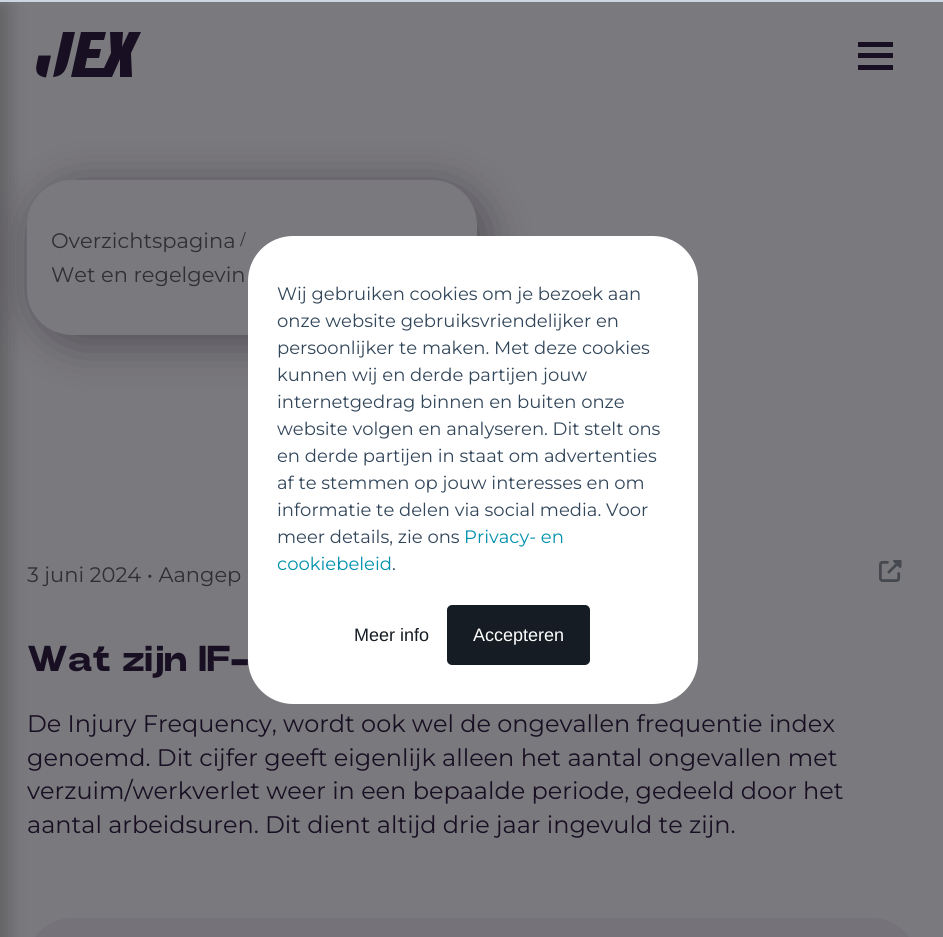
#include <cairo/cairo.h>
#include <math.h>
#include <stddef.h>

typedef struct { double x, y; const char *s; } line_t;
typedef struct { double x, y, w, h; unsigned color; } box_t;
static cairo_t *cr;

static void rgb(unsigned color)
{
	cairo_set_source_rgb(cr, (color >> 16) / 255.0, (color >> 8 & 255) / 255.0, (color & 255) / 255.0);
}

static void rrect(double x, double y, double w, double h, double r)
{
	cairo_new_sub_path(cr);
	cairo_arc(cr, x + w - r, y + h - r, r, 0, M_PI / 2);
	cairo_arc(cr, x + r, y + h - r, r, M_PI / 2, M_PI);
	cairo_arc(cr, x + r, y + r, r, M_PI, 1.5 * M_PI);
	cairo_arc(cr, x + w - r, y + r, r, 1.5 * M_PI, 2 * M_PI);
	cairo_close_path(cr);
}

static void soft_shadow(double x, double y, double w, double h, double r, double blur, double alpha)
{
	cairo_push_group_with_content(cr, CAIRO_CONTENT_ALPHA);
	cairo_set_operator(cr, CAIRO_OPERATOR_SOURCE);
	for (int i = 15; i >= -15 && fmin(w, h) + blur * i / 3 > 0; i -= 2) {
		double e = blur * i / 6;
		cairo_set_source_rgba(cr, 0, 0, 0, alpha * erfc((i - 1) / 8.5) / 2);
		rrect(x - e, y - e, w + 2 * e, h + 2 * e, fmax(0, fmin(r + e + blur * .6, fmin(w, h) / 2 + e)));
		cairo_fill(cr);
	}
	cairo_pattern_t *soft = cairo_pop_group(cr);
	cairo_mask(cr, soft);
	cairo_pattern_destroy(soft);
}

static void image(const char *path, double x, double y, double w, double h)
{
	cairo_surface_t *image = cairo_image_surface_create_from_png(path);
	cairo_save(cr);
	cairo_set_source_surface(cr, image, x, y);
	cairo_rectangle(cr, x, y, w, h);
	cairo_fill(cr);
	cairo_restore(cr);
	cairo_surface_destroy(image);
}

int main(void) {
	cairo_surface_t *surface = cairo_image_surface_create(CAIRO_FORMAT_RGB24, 943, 937);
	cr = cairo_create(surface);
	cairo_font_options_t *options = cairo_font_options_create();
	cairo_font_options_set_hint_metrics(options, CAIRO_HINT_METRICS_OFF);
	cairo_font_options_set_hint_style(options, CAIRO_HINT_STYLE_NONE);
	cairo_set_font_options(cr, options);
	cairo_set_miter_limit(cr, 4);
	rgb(0x7a797d);
	cairo_paint(cr);
	rgb(0x180f23);
	cairo_new_path(cr);
	cairo_move_to(cr, 141, 32);
	cairo_line_to(cr, 129, 32);
	cairo_line_to(cr, 122, 47);
	cairo_line_to(cr, 123, 32);
	cairo_line_to(cr, 110, 32);
	cairo_line_to(cr, 111, 53);
	cairo_line_to(cr, 104, 68);
	cairo_line_to(cr, 85, 68);
	cairo_line_to(cr, 87, 58);
	cairo_line_to(cr, 99, 58);
	cairo_line_to(cr, 101, 49);
	cairo_line_to(cr, 89, 49);
	cairo_line_to(cr, 91, 40);
	cairo_line_to(cr, 104, 40);
	cairo_line_to(cr, 106, 32);
	cairo_line_to(cr, 81, 32);
	cairo_line_to(cr, 71, 77);
	cairo_line_to(cr, 112, 77);
	cairo_line_to(cr, 120, 59);
	cairo_line_to(cr, 120, 77);
	cairo_line_to(cr, 132, 77);
	cairo_line_to(cr, 131, 53);
	cairo_close_path(cr);
	cairo_fill(cr);
	cairo_new_path(cr);
	cairo_move_to(cr, 38.5, 55.5);
	cairo_curve_to(cr, 36.5, 66, 32, 75.5, 46, 77.5);
	cairo_line_to(cr, 51, 55.5);
	cairo_close_path(cr);
	cairo_move_to(cr, 63, 32);
	cairo_line_to(cr, 53, 77);
	cairo_curve_to(cr, 66, 76, 67, 66, 70, 54);
	cairo_line_to(cr, 75, 32);
	cairo_close_path(cr);
	cairo_fill(cr);
	rgb(0x0f0a16);
	soft_shadow(35, 188, 450, 154, 45, 22.5, 0.4);
	rgb(0x7a797d);
	rrect(27, 180, 450, 155, 45);
	cairo_fill(cr);
	rgb(0x75727a);
	rrect(27, 918, 890, 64, 45);
	cairo_fill(cr);
	rgb(0x000000);
	soft_shadow(-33, 6, 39, 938, 0, 11, 0.25);
	{
		static const box_t items[] = {
			{858, 42, 35, 5, 0x180f23},
			{858, 53, 35, 5, 0x180f23},
			{858, 65, 35, 5, 0x180f23},
		};
		for (size_t i = 0; i < sizeof items / sizeof *items; i++) {
			rgb(items[i].color);
			cairo_rectangle(cr, items[i].x, items[i].y, items[i].w, items[i].h);
			cairo_fill(cr);
		}
	}
	image("img/1.png", 879, 560, 23, 22);
	rgb(0xcbd6e2);
	cairo_rectangle(cr, 0, 0, 943, 2);
	cairo_fill(cr);
	rgb(0xffffff);
	rrect(248, 236, 450, 468, 45);
	cairo_fill(cr);
	rgb(0x161c24);
	rrect(448, 606, 141, 58, 4);
	cairo_fill_preserve(cr);
	cairo_stroke(cr);
	cairo_select_font_face(cr, "Montserrat", CAIRO_FONT_SLANT_NORMAL, CAIRO_FONT_WEIGHT_NORMAL);
	cairo_set_font_size(cr, 21);
	rgb(0x2e3034);
	cairo_move_to(cr, 51, 248);
	cairo_show_text(cr, "Overzichtspagina");
	cairo_select_font_face(cr, "Liberation Serif", CAIRO_FONT_SLANT_NORMAL, CAIRO_FONT_WEIGHT_NORMAL);
	cairo_move_to(cr, 240, 246);
	cairo_show_text(cr, "/");
	cairo_select_font_face(cr, "Montserrat", CAIRO_FONT_SLANT_NORMAL, CAIRO_FONT_WEIGHT_NORMAL);
	cairo_move_to(cr, 51, 282);
	cairo_show_text(cr, "Wet en regelgevin");
	cairo_move_to(cr, 27, 582);
	cairo_show_text(cr, "3 juni 2024 • Aangep");
	cairo_select_font_face(cr, "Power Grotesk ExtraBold", CAIRO_FONT_SLANT_NORMAL, CAIRO_FONT_WEIGHT_NORMAL);
	cairo_set_font_size(cr, 36);
	rgb(0x180f23);
	cairo_move_to(cr, 27, 671);
	cairo_show_text(cr, "Wat zijn IF-");
	cairo_select_font_face(cr, "Montserrat", CAIRO_FONT_SLANT_NORMAL, CAIRO_FONT_WEIGHT_NORMAL);
	cairo_set_font_size(cr, 24);
	{
		static const line_t items[] = {
			{27, 732, "De Injury Frequency, wordt ook wel de ongevallen frequentie index"},
			{27, 766, "genoemd. Dit cijfer geeft eigenlijk alleen het aantal ongevallen met"},
			{27, 799, "verzuim/werkverlet weer in een bepaalde periode, gedeeld door het"},
			{27, 833, "aantal arbeidsuren. Dit dient altijd drie jaar ingevuld te zijn."},
		};
		for (size_t i = 0; i < sizeof items / sizeof *items; i++) {
			cairo_move_to(cr, items[i].x, items[i].y);
			cairo_show_text(cr, items[i].s);
		}
	}
	cairo_set_font_size(cr, 18);
	rgb(0x33475b);
	{
		static const line_t items[] = {
			{277, 300, "Wij gebruiken cookies om je bezoek aan"},
			{277, 327, "onze website gebruiksvriendelijker en"},
			{277, 354, "persoonlijker te maken. Met deze cookies"},
			{277, 381, "kunnen wij en derde partijen jouw"},
			{277, 408, "internetgedrag binnen en buiten onze"},
			{277, 435, "website volgen en analyseren. Dit stelt ons"},
			{277, 462, "en derde partijen in staat om advertenties"},
			{277, 489, "af te stemmen op jouw interesses en om"},
			{277, 516, "informatie te delen via social media. Voor"},
			{277, 543, "meer details, zie ons"},
		};
		for (size_t i = 0; i < sizeof items / sizeof *items; i++) {
			cairo_move_to(cr, items[i].x, items[i].y);
			cairo_show_text(cr, items[i].s);
		}
	}
	rgb(0x0091ae);
	cairo_move_to(cr, 464, 543);
	cairo_show_text(cr, "Privacy- en");
	cairo_move_to(cr, 277, 570);
	cairo_show_text(cr, "cookiebeleid");
	rgb(0x33475b);
	cairo_move_to(cr, 392, 570);
	cairo_show_text(cr, ".");
	cairo_select_font_face(cr, "Liberation Sans", CAIRO_FONT_SLANT_NORMAL, CAIRO_FONT_WEIGHT_NORMAL);
	rgb(0x161c24);
	cairo_move_to(cr, 354, 641);
	cairo_show_text(cr, "Meer info");
	rgb(0xffffff);
	cairo_move_to(cr, 473, 641);
	cairo_show_text(cr, "Accepteren");
	cairo_surface_write_to_png(surface, "page.png");
	cairo_font_options_destroy(options);
	cairo_destroy(cr);
	cairo_surface_destroy(surface);
	return 0;
}
